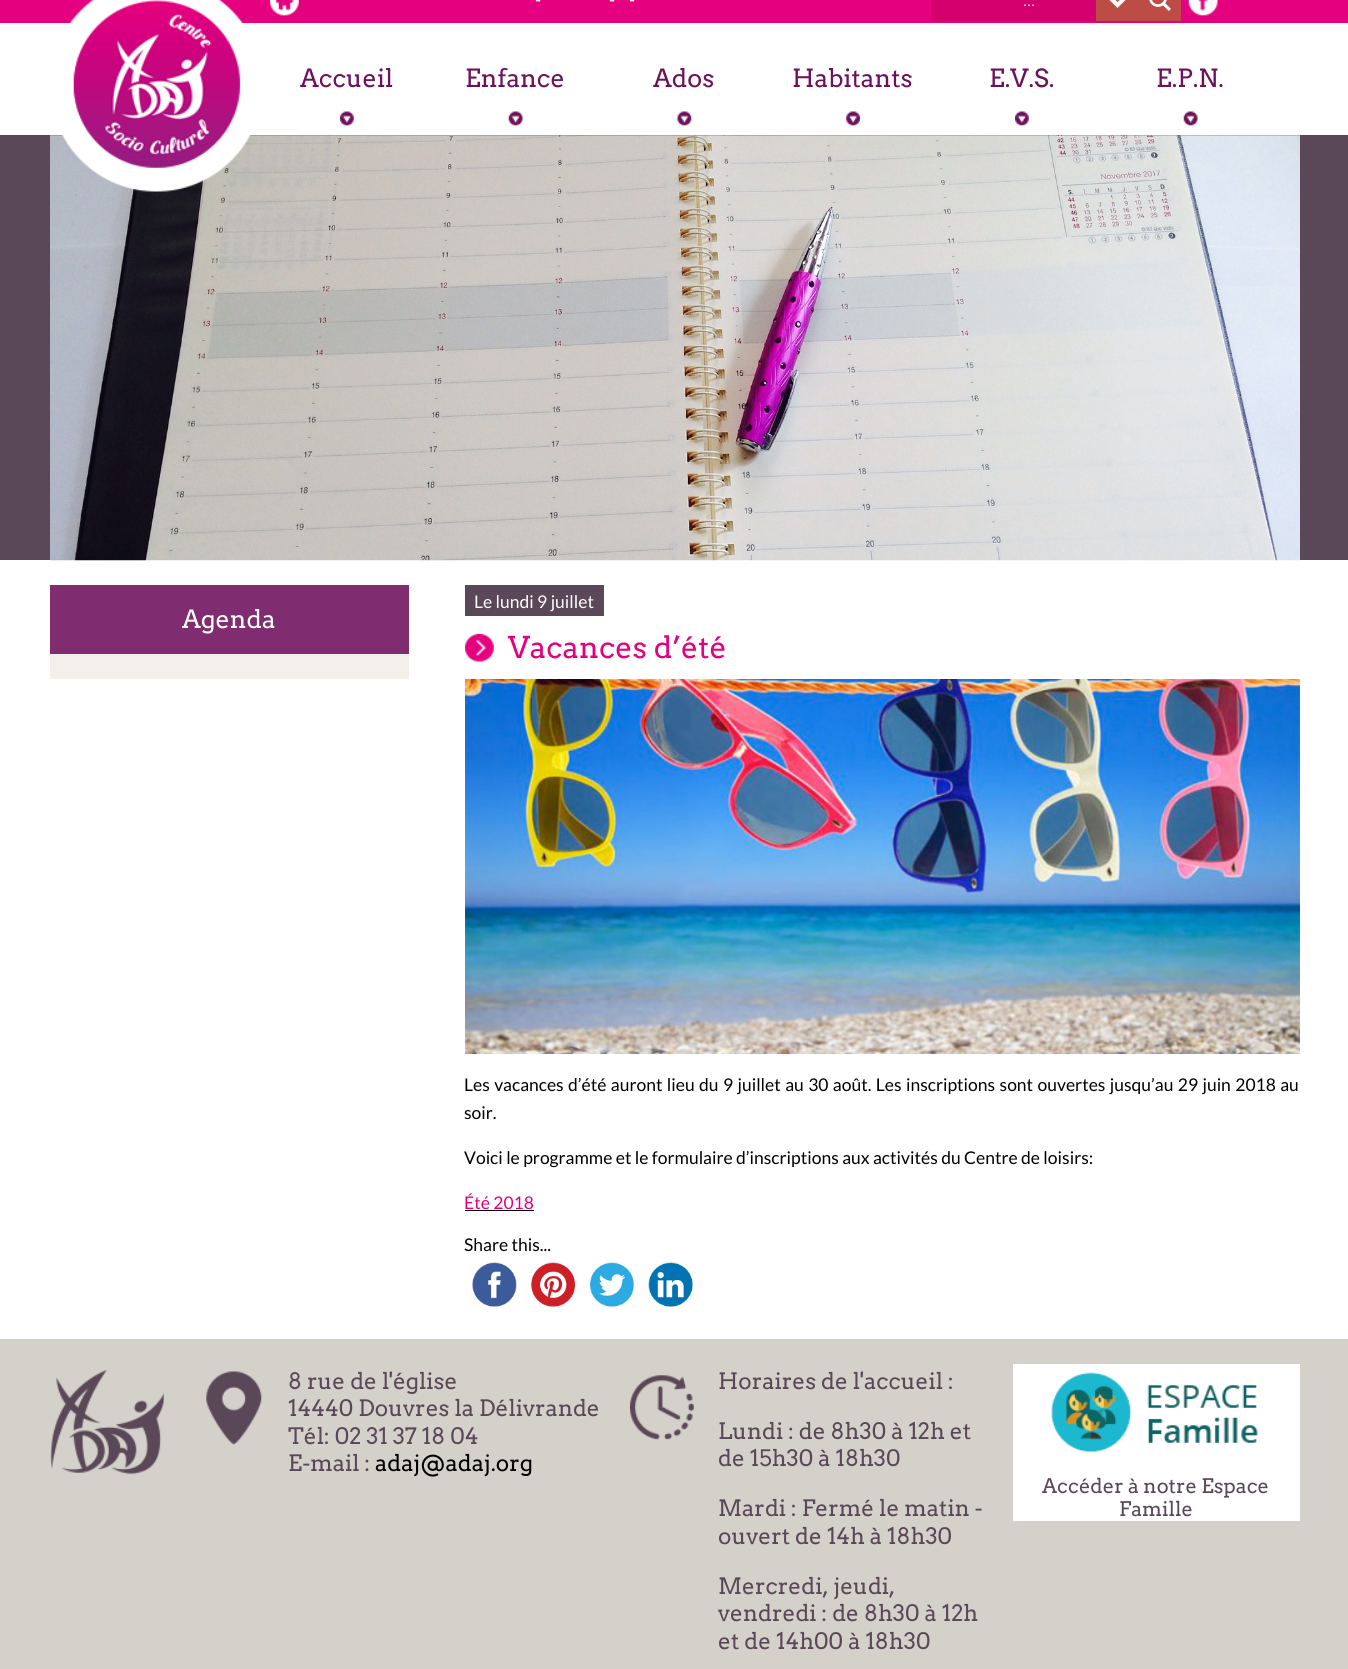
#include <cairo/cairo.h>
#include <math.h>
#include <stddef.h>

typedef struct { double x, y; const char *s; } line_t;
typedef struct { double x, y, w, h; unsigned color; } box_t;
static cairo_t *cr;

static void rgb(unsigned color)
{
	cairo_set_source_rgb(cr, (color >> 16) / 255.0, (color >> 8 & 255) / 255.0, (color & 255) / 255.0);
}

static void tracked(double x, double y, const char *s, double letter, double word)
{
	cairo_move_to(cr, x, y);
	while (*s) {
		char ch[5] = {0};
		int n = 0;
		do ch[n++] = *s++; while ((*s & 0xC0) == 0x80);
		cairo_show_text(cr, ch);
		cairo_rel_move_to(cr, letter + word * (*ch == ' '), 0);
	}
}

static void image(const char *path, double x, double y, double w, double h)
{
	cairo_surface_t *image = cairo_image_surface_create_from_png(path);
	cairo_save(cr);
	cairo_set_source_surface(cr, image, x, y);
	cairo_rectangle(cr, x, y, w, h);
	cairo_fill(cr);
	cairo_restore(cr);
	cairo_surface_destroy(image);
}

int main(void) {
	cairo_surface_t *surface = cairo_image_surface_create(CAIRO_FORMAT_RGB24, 1348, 1669);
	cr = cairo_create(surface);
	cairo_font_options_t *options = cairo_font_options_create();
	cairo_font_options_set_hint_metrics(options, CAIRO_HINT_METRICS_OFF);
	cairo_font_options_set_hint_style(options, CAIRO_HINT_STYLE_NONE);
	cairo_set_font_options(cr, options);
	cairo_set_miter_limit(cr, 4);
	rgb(0xffffff);
	cairo_paint(cr);
	rgb(0xe4007e);
	cairo_rectangle(cr, 0, 0, 1348, 23);
	cairo_fill(cr);
	rgb(0x5a4858);
	cairo_rectangle(cr, 0, 135, 1348, 425);
	cairo_fill(cr);
	image("img/9.png", 50, 135, 1250, 426);
	image("img/1.png", 61, 0, 190, 192);
	image("img/2.png", 269, 0, 30, 16);
	rgb(0xd3006d);
	cairo_rectangle(cr, 931, 0, 165, 21);
	cairo_fill(cr);
	rgb(0xbe4c46);
	cairo_rectangle(cr, 1096, 0, 85, 21);
	cairo_fill(cr);
	rgb(0xffffff);
	cairo_new_path(cr);
	cairo_move_to(cr, 1125.5, -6);
	cairo_line_to(cr, 1128.5, -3);
	cairo_line_to(cr, 1117.5, 8);
	cairo_line_to(cr, 1106.5, -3);
	cairo_line_to(cr, 1109.5, -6);
	cairo_line_to(cr, 1117.5, 2);
	cairo_close_path(cr);
	cairo_fill(cr);
	image("img/3.png", 1149, 0, 22, 11);
	image("img/4.png", 1188, 0, 30, 16);
	image("img/5.png", 340, 111, 14, 15);
	image("img/6.png", 508, 111, 15, 15);
	image("img/7.png", 677, 111, 15, 15);
	image("img/8.png", 846, 111, 14, 15);
	image("img/5.png", 1015, 111, 14, 15);
	image("img/6.png", 1183, 111, 15, 15);
	{
		static const box_t items[] = {
			{50, 585, 359, 69, 0x7f2c70},
			{50, 654, 359, 25, 0xf3f0eb},
			{465, 585, 139, 31, 0x5a4858},
		};
		for (size_t i = 0; i < sizeof items / sizeof *items; i++) {
			rgb(items[i].color);
			cairo_rectangle(cr, items[i].x, items[i].y, items[i].w, items[i].h);
			cairo_fill(cr);
		}
	}
	image("img/10.png", 465, 634, 29, 28);
	image("img/11.png", 465, 679, 835, 375);
	rgb(0x000000);
	cairo_rectangle(cr, 465, 1210, 69, 1);
	cairo_fill(cr);
	image("img/12.png", 472, 1262, 45, 45);
	image("img/13.png", 531, 1262, 44, 45);
	image("img/14.png", 590, 1262, 44, 45);
	image("img/15.png", 648, 1262, 45, 45);
	rgb(0xd3d1ca);
	cairo_rectangle(cr, 0, 1339, 1348, 330);
	cairo_fill(cr);
	image("img/16.png", 50, 1370, 114, 105);
	image("img/17.png", 206, 1371, 56, 74);
	image("img/18.png", 630, 1375, 64, 65);
	rgb(0xffffff);
	cairo_rectangle(cr, 1013, 1364, 287, 157);
	cairo_fill(cr);
	image("img/19.png", 1051, 1372, 207, 80);
	cairo_select_font_face(cr, "Lato", CAIRO_FONT_SLANT_NORMAL, CAIRO_FONT_WEIGHT_NORMAL);
	cairo_set_font_size(cr, 17.5);
	{
		static const line_t items[] = {
			{535, 6, "-"},
			{609, 6, "-"},
			{629, 6, "-"},
		};
		for (size_t i = 0; i < sizeof items / sizeof *items; i++) {
			cairo_move_to(cr, items[i].x, items[i].y);
			cairo_show_text(cr, items[i].s);
		}
	}
	cairo_select_font_face(cr, "Open Sans", CAIRO_FONT_SLANT_NORMAL, CAIRO_FONT_WEIGHT_NORMAL);
	cairo_set_font_size(cr, 15);
	rgb(0xf8d9e9);
	cairo_move_to(cr, 1023, 6);
	cairo_show_text(cr, "...");
	cairo_select_font_face(cr, "Arvo", CAIRO_FONT_SLANT_NORMAL, CAIRO_FONT_WEIGHT_NORMAL);
	cairo_set_font_size(cr, 25);
	rgb(0x6e115d);
	{
		static const line_t items[] = {
			{300, 87, "Accueil"},
			{465, 87, "Enfance"},
			{653, 87, "Ados"},
			{792, 87, "Habitants"},
			{989, 87, "E.V.S."},
			{1156, 87, "E.P.N."},
		};
		for (size_t i = 0; i < sizeof items / sizeof *items; i++) {
			cairo_move_to(cr, items[i].x, items[i].y);
			cairo_show_text(cr, items[i].s);
		}
	}
	rgb(0xffffff);
	cairo_move_to(cr, 182, 628);
	cairo_show_text(cr, "Agenda");
	cairo_select_font_face(cr, "Lato", CAIRO_FONT_SLANT_NORMAL, CAIRO_FONT_WEIGHT_NORMAL);
	cairo_set_font_size(cr, 17.5);
	cairo_move_to(cr, 474, 608);
	cairo_show_text(cr, "Le lundi 9 juillet");
	cairo_select_font_face(cr, "Arvo", CAIRO_FONT_SLANT_NORMAL, CAIRO_FONT_WEIGHT_NORMAL);
	cairo_set_font_size(cr, 30);
	rgb(0xe4007e);
	cairo_move_to(cr, 508, 658);
	cairo_show_text(cr, "Vacances d’été");
	cairo_select_font_face(cr, "Lato", CAIRO_FONT_SLANT_NORMAL, CAIRO_FONT_WEIGHT_NORMAL);
	cairo_set_font_size(cr, 17.5);
	rgb(0x000000);
	tracked(464, 1091, "Les vacances d’été auront lieu du 9 juillet au 30 août. Les inscriptions sont ouvertes jusqu’au 29 juin 2018 au", 0, 1);
	cairo_move_to(cr, 464, 1119);
	cairo_show_text(cr, "soir.");
	cairo_move_to(cr, 464, 1164);
	cairo_show_text(cr, "Voici le programme et le formulaire d’inscriptions aux activités du Centre de loisirs:");
	rgb(0xe4007e);
	cairo_move_to(cr, 464, 1209);
	cairo_show_text(cr, "Été 2018");
	rgb(0x000000);
	cairo_move_to(cr, 464, 1251);
	cairo_show_text(cr, "Share this...");
	cairo_select_font_face(cr, "Arvo", CAIRO_FONT_SLANT_NORMAL, CAIRO_FONT_WEIGHT_NORMAL);
	cairo_set_font_size(cr, 22.5);
	rgb(0x5a4757);
	{
		static const line_t items[] = {
			{288, 1389, "8 rue de l'église"},
			{288, 1416, "14440 Douvres la Délivrande"},
			{288, 1444, "Tél: 02 31 37 18 04"},
			{288, 1471, "E-mail :"},
		};
		for (size_t i = 0; i < sizeof items / sizeof *items; i++) {
			cairo_move_to(cr, items[i].x, items[i].y);
			cairo_show_text(cr, items[i].s);
		}
	}
	rgb(0x000000);
	cairo_move_to(cr, 375, 1471);
	cairo_show_text(cr, "adaj@adaj.org");
	rgb(0x5a4757);
	{
		static const line_t items[] = {
			{718, 1389, "Horaires de l'accueil :"},
			{718, 1439, "Lundi : de 8h30 à 12h et"},
			{718, 1466, "de 15h30 à 18h30"},
			{718, 1516, "Mardi : Fermé le matin -"},
			{718, 1544, "ouvert de 14h à 18h30"},
			{718, 1594, "Mercredi, jeudi,"},
			{718, 1621, "vendredi : de 8h30 à 12h"},
			{718, 1649, "et de 14h00 à 18h30"},
		};
		for (size_t i = 0; i < sizeof items / sizeof *items; i++) {
			cairo_move_to(cr, items[i].x, items[i].y);
			cairo_show_text(cr, items[i].s);
		}
	}
	cairo_set_font_size(cr, 20);
	cairo_move_to(cr, 1042, 1493);
	cairo_show_text(cr, "Accéder à notre Espace");
	cairo_move_to(cr, 1119, 1516);
	cairo_show_text(cr, "Famille");
	cairo_surface_write_to_png(surface, "page.png");
	cairo_font_options_destroy(options);
	cairo_destroy(cr);
	cairo_surface_destroy(surface);
	return 0;
}
